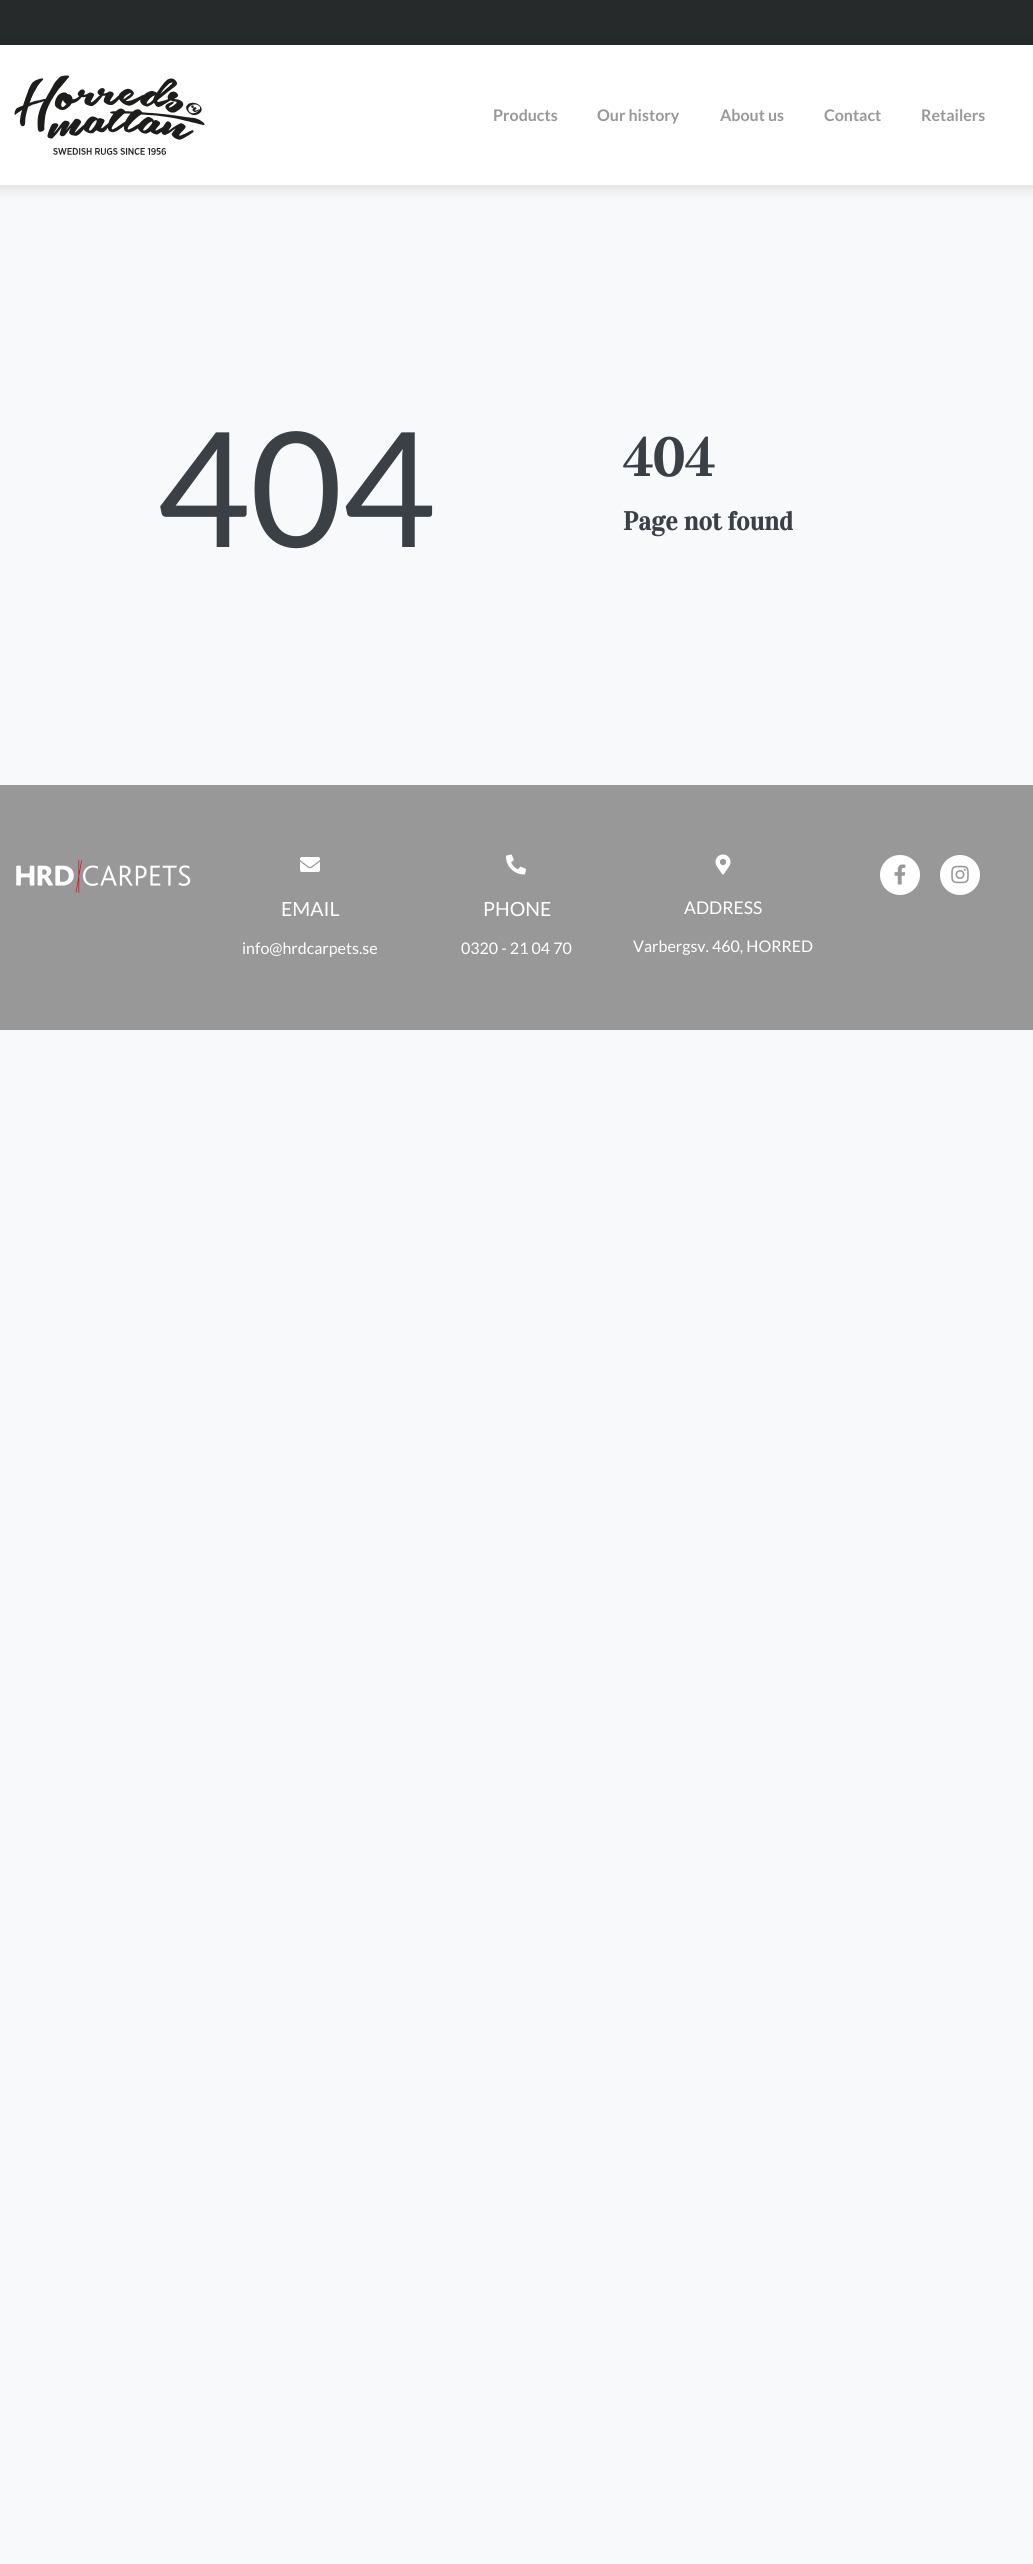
#include <cairo/cairo.h>
#include <math.h>
#include <stddef.h>

typedef struct { double x, y; const char *s; } line_t;
static cairo_t *cr;

static void rgb(unsigned color)
{
	cairo_set_source_rgb(cr, (color >> 16) / 255.0, (color >> 8 & 255) / 255.0, (color & 255) / 255.0);
}

static void rrect(double x, double y, double w, double h, double r)
{
	cairo_new_sub_path(cr);
	cairo_arc(cr, x + w - r, y + h - r, r, 0, M_PI / 2);
	cairo_arc(cr, x + r, y + h - r, r, M_PI / 2, M_PI);
	cairo_arc(cr, x + r, y + r, r, M_PI, 1.5 * M_PI);
	cairo_arc(cr, x + w - r, y + r, r, 1.5 * M_PI, 2 * M_PI);
	cairo_close_path(cr);
}

static void soft_shadow(double x, double y, double w, double h, double r, double blur, double alpha)
{
	cairo_push_group_with_content(cr, CAIRO_CONTENT_ALPHA);
	cairo_set_operator(cr, CAIRO_OPERATOR_SOURCE);
	for (int i = 15; i >= -15 && fmin(w, h) + blur * i / 3 > 0; i -= 2) {
		double e = blur * i / 6;
		cairo_set_source_rgba(cr, 0, 0, 0, alpha * erfc((i - 1) / 8.5) / 2);
		rrect(x - e, y - e, w + 2 * e, h + 2 * e, fmax(0, fmin(r + e + blur * .6, fmin(w, h) / 2 + e)));
		cairo_fill(cr);
	}
	cairo_pattern_t *soft = cairo_pop_group(cr);
	cairo_mask(cr, soft);
	cairo_pattern_destroy(soft);
}

static void image(const char *path, double x, double y, double w, double h)
{
	cairo_surface_t *image = cairo_image_surface_create_from_png(path);
	cairo_save(cr);
	cairo_set_source_surface(cr, image, x, y);
	cairo_rectangle(cr, x, y, w, h);
	cairo_fill(cr);
	cairo_restore(cr);
	cairo_surface_destroy(image);
}

int main(void) {
	cairo_surface_t *surface = cairo_image_surface_create(CAIRO_FORMAT_RGB24, 1033, 2564);
	cr = cairo_create(surface);
	cairo_font_options_t *options = cairo_font_options_create();
	cairo_font_options_set_hint_metrics(options, CAIRO_HINT_METRICS_OFF);
	cairo_font_options_set_hint_style(options, CAIRO_HINT_STYLE_NONE);
	cairo_set_font_options(cr, options);
	cairo_set_miter_limit(cr, 4);
	rgb(0xf8f9fa);
	cairo_paint(cr);
	rgb(0xffffff);
	cairo_rectangle(cr, 0, 45, 1033, 140);
	cairo_fill(cr);
	rgb(0x262a2b);
	cairo_rectangle(cr, 0, 0, 1033, 45);
	cairo_fill(cr);
	cairo_save(cr);
	cairo_set_fill_rule(cr, CAIRO_FILL_RULE_EVEN_ODD);
	cairo_new_path(cr);
	cairo_move_to(cr, 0, 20);
	cairo_line_to(cr, 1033, 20);
	cairo_line_to(cr, 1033, 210);
	cairo_line_to(cr, 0, 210);
	cairo_close_path(cr);
	cairo_move_to(cr, 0, 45);
	cairo_line_to(cr, 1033, 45);
	cairo_line_to(cr, 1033, 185);
	cairo_line_to(cr, 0, 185);
	cairo_close_path(cr);
	cairo_clip(cr);
	rgb(0x000000);
	soft_shadow(-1, 44, 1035, 142, 0, 7.5, 0.15);
	cairo_restore(cr);
	image("img/1.png", 14, 75, 191, 80);
	rgb(0x989898);
	cairo_rectangle(cr, 0, 785, 1033, 245);
	cairo_fill(cr);
	image("img/2.png", 16, 860, 175, 33);
	rgb(0xffffff);
	cairo_arc(cr, 900, 875, 20, 0, 2 * M_PI);
	cairo_fill(cr);
	image("img/3.png", 894, 864, 12, 21);
	cairo_arc(cr, 960, 875, 20, 0, 2 * M_PI);
	cairo_fill(cr);
	image("img/4.png", 951, 865, 18, 19);
	image("img/5.png", 300, 857, 20, 15);
	image("img/6.png", 506, 854, 20, 21);
	image("img/7.png", 715, 854, 16, 21);
	cairo_select_font_face(cr, "Lato", CAIRO_FONT_SLANT_NORMAL, CAIRO_FONT_WEIGHT_BOLD);
	cairo_set_font_size(cr, 16);
	rgb(0x989898);
	{
		static const line_t items[] = {
			{493, 121, "Products"},
			{597, 121, "Our history"},
			{720, 121, "About us"},
			{824, 121, "Contact"},
			{921, 121, "Retailers"},
		};
		for (size_t i = 0; i < sizeof items / sizeof *items; i++) {
			cairo_move_to(cr, items[i].x, items[i].y);
			cairo_show_text(cr, items[i].s);
		}
	}
	cairo_select_font_face(cr, "Lato", CAIRO_FONT_SLANT_NORMAL, CAIRO_FONT_WEIGHT_NORMAL);
	cairo_set_font_size(cr, 160);
	rgb(0x3a4046);
	cairo_move_to(cr, 157, 547);
	cairo_show_text(cr, "404");
	cairo_select_font_face(cr, "Vidaloka", CAIRO_FONT_SLANT_NORMAL, CAIRO_FONT_WEIGHT_BOLD);
	cairo_set_font_size(cr, 53);
	cairo_move_to(cr, 623, 476);
	cairo_show_text(cr, "404");
	cairo_set_font_size(cr, 26);
	cairo_move_to(cr, 623, 530);
	cairo_show_text(cr, "Page not found");
	cairo_select_font_face(cr, "Lato", CAIRO_FONT_SLANT_NORMAL, CAIRO_FONT_WEIGHT_NORMAL);
	cairo_set_font_size(cr, 19.5);
	rgb(0xffffff);
	cairo_move_to(cr, 281, 916);
	cairo_show_text(cr, "EMAIL");
	cairo_set_font_size(cr, 16);
	cairo_move_to(cr, 242, 954);
	cairo_show_text(cr, "info@hrdcarpets.se");
	cairo_set_font_size(cr, 19.5);
	cairo_move_to(cr, 483, 916);
	cairo_show_text(cr, "PHONE");
	cairo_set_font_size(cr, 16);
	cairo_move_to(cr, 461, 954);
	cairo_show_text(cr, "0320 - 21 04 70");
	cairo_set_font_size(cr, 17.5);
	cairo_move_to(cr, 684, 914);
	cairo_show_text(cr, "ADDRESS");
	cairo_set_font_size(cr, 16);
	cairo_move_to(cr, 633, 952);
	cairo_show_text(cr, "Varbergsv. 460, HORRED");
	cairo_surface_write_to_png(surface, "page.png");
	cairo_font_options_destroy(options);
	cairo_destroy(cr);
	cairo_surface_destroy(surface);
	return 0;
}
